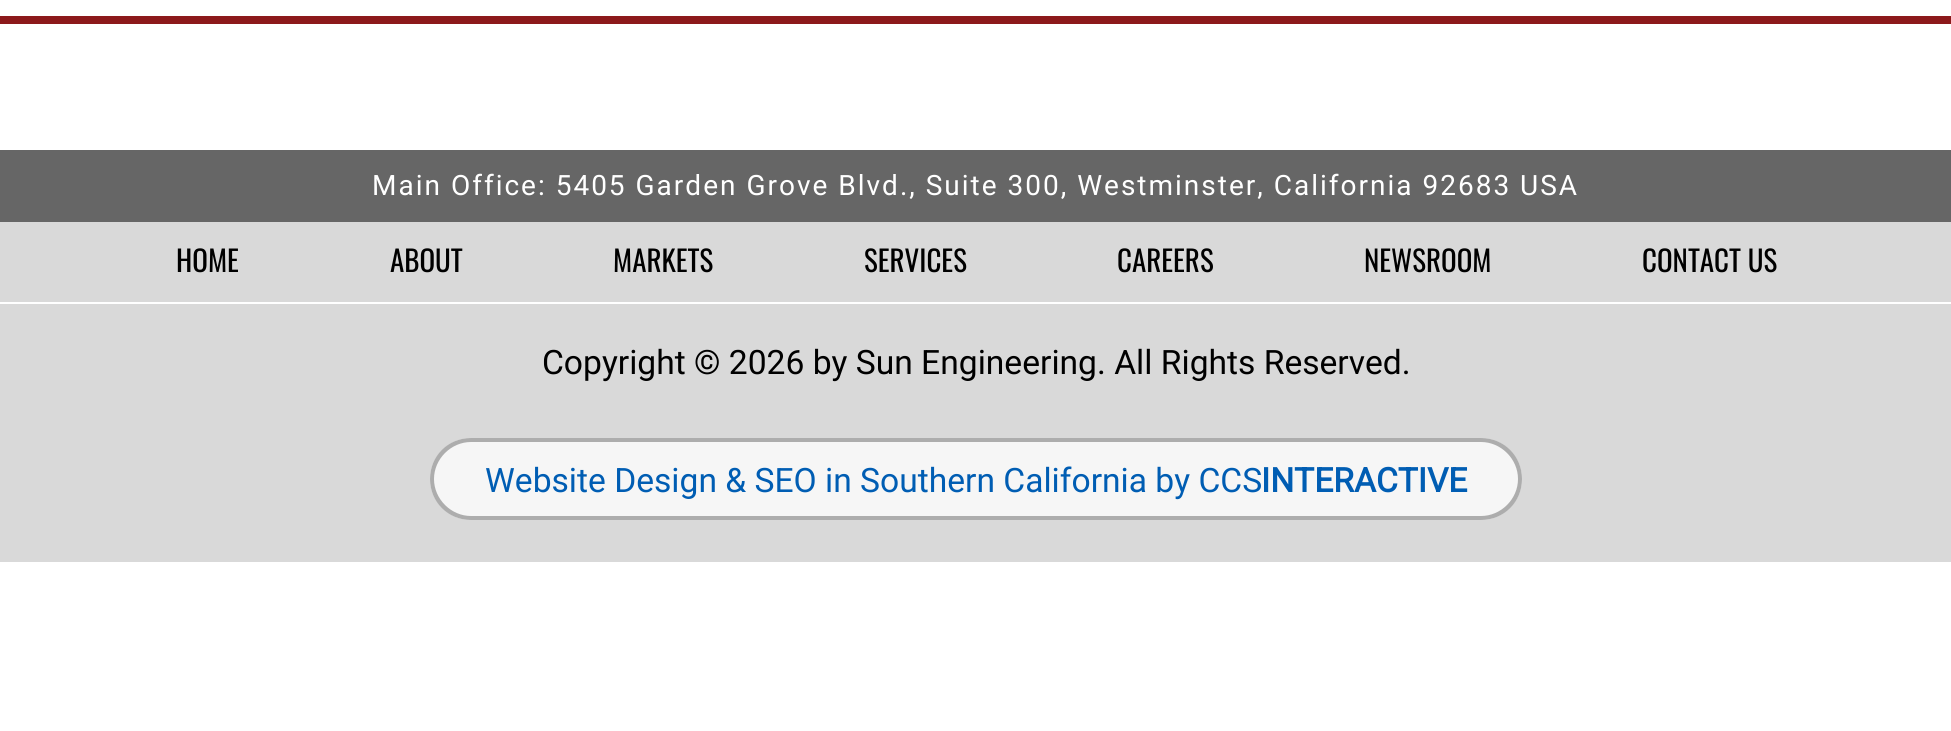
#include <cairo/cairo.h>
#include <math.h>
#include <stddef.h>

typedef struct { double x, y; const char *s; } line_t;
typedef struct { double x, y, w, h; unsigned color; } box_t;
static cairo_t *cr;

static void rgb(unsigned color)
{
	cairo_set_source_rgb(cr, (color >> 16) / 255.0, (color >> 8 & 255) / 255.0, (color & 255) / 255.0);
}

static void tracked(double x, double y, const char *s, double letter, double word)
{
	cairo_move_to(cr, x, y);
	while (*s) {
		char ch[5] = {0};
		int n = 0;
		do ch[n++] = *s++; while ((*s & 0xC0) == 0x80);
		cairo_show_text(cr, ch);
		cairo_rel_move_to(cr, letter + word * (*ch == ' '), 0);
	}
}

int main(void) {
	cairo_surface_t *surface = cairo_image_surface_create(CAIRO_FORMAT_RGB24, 1951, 731);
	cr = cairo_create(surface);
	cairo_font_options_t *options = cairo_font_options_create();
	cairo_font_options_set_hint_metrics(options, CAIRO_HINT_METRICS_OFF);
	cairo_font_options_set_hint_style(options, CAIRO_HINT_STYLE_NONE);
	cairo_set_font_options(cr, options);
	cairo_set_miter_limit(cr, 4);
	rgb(0xffffff);
	cairo_paint(cr);
	{
		static const box_t items[] = {
			{0, 16, 1951, 8, 0x8c191b},
			{0, 150, 1951, 72, 0x666666},
			{0, 222, 1951, 340, 0xd9d9d9},
			{0, 302, 1951, 2, 0xffffff},
		};
		for (size_t i = 0; i < sizeof items / sizeof *items; i++) {
			rgb(items[i].color);
			cairo_rectangle(cr, items[i].x, items[i].y, items[i].w, items[i].h);
			cairo_fill(cr);
		}
	}
	rgb(0xf6f6f6);
	cairo_new_path(cr);
	cairo_move_to(cr, 471, 438);
	cairo_line_to(cr, 1262, 438);
	cairo_line_to(cr, 1262, 520);
	cairo_line_to(cr, 471, 520);
	cairo_curve_to(cr, 448.5, 520, 430, 501.5, 430, 479);
	cairo_curve_to(cr, 430, 456.5, 448.5, 438, 471, 438);
	cairo_close_path(cr);
	cairo_fill(cr);
	rgb(0xadadad);
	cairo_set_fill_rule(cr, CAIRO_FILL_RULE_EVEN_ODD);
	cairo_new_path(cr);
	cairo_move_to(cr, 471, 438);
	cairo_line_to(cr, 1262, 438);
	cairo_line_to(cr, 1262, 520);
	cairo_line_to(cr, 471, 520);
	cairo_curve_to(cr, 448, 520, 430, 502, 430, 479);
	cairo_curve_to(cr, 430, 456, 448, 438, 471, 438);
	cairo_close_path(cr);
	cairo_move_to(cr, 471, 442);
	cairo_line_to(cr, 1262, 442);
	cairo_line_to(cr, 1262, 516);
	cairo_line_to(cr, 471, 516);
	cairo_curve_to(cr, 451, 516, 434, 499, 434, 479);
	cairo_curve_to(cr, 434, 459, 451, 442, 471, 442);
	cairo_close_path(cr);
	cairo_fill(cr);
	rgb(0xf6f6f6);
	cairo_new_path(cr);
	cairo_move_to(cr, 1262, 438);
	cairo_line_to(cr, 1481, 438);
	cairo_curve_to(cr, 1503.5, 438, 1522, 456.5, 1522, 479);
	cairo_curve_to(cr, 1522, 501.5, 1503.5, 520, 1481, 520);
	cairo_line_to(cr, 1262, 520);
	cairo_close_path(cr);
	cairo_fill(cr);
	rgb(0xadadad);
	cairo_new_path(cr);
	cairo_move_to(cr, 1262, 438);
	cairo_line_to(cr, 1481, 438);
	cairo_curve_to(cr, 1504, 438, 1522, 456, 1522, 479);
	cairo_curve_to(cr, 1522, 502, 1504, 520, 1481, 520);
	cairo_line_to(cr, 1262, 520);
	cairo_close_path(cr);
	cairo_move_to(cr, 1262, 442);
	cairo_line_to(cr, 1481, 442);
	cairo_curve_to(cr, 1501, 442, 1518, 459, 1518, 479);
	cairo_curve_to(cr, 1518, 499, 1501, 516, 1481, 516);
	cairo_line_to(cr, 1262, 516);
	cairo_close_path(cr);
	cairo_fill(cr);
	cairo_select_font_face(cr, "Roboto", CAIRO_FONT_SLANT_NORMAL, CAIRO_FONT_WEIGHT_NORMAL);
	cairo_set_font_size(cr, 28);
	rgb(0xffffff);
	tracked(372, 195, "Main Office: 5405 Garden Grove Blvd., Suite 300, Westminster, California 92683 USA", 2, 0);
	cairo_select_font_face(cr, "Oswald", CAIRO_FONT_SLANT_NORMAL, CAIRO_FONT_WEIGHT_NORMAL);
	cairo_set_font_size(cr, 29);
	rgb(0x000000);
	{
		static const line_t items[] = {
			{176, 272, "HOME"},
			{390, 272, "ABOUT"},
			{613, 272, "MARKETS"},
			{864, 272, "SERVICES"},
			{1117, 272, "CAREERS"},
			{1364, 272, "NEWSROOM"},
			{1642, 272, "CONTACT US"},
		};
		for (size_t i = 0; i < sizeof items / sizeof *items; i++) {
			cairo_move_to(cr, items[i].x, items[i].y);
			cairo_show_text(cr, items[i].s);
		}
	}
	cairo_select_font_face(cr, "Roboto", CAIRO_FONT_SLANT_NORMAL, CAIRO_FONT_WEIGHT_NORMAL);
	cairo_set_font_size(cr, 33.6);
	cairo_move_to(cr, 542, 374);
	cairo_show_text(cr, "Copyright © 2026 by Sun Engineering. All Rights Reserved.");
	rgb(0x005db3);
	cairo_move_to(cr, 485, 492);
	cairo_show_text(cr, "Website Design & SEO in Southern California by CCS");
	cairo_select_font_face(cr, "Roboto", CAIRO_FONT_SLANT_NORMAL, CAIRO_FONT_WEIGHT_BOLD);
	cairo_move_to(cr, 1261, 492);
	cairo_show_text(cr, "INTERACTIVE");
	cairo_surface_write_to_png(surface, "page.png");
	cairo_font_options_destroy(options);
	cairo_destroy(cr);
	cairo_surface_destroy(surface);
	return 0;
}
